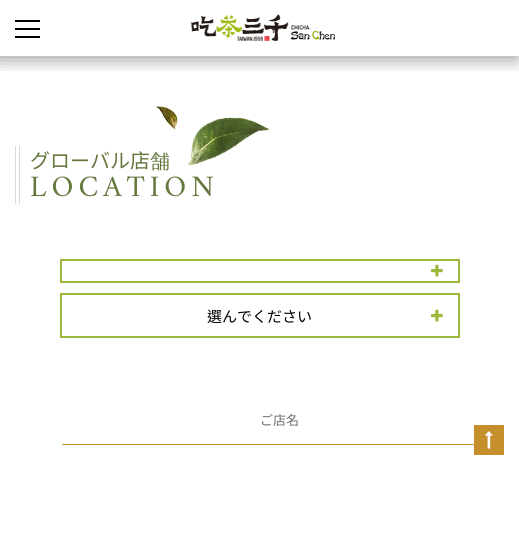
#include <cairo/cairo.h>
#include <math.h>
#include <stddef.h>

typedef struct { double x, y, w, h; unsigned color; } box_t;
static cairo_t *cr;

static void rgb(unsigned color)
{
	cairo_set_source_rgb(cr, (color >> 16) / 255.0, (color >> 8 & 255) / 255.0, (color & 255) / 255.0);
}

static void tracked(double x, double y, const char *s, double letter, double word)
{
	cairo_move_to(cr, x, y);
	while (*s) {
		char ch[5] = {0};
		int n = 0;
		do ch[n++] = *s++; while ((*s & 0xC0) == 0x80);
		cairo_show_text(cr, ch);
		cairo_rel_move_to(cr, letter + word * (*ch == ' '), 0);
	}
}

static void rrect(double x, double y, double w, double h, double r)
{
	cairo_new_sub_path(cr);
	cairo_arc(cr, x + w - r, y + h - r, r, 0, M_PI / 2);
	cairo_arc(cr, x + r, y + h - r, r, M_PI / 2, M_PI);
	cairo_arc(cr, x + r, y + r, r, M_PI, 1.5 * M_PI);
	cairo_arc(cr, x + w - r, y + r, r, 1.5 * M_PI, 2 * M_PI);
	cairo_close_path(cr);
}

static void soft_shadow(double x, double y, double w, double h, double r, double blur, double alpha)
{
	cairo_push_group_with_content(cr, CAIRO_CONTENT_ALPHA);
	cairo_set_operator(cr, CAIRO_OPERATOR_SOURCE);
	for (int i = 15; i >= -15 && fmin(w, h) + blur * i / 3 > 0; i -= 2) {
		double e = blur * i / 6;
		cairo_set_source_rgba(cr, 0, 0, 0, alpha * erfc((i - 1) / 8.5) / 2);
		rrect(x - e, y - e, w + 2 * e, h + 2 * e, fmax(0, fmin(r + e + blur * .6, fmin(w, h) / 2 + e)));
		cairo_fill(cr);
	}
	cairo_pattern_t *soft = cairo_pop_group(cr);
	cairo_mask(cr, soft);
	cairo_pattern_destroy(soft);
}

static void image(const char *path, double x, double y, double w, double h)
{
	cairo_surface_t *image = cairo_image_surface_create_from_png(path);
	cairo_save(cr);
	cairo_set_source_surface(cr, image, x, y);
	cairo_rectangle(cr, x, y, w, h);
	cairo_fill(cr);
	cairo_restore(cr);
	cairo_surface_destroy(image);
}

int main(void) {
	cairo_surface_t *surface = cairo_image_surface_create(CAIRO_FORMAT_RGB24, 519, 545);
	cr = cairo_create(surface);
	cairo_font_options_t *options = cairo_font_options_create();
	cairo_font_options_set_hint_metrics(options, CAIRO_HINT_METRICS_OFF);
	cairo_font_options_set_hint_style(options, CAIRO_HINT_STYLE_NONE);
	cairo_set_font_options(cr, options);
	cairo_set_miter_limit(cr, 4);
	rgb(0xffffff);
	cairo_paint(cr);
	cairo_save(cr);
	cairo_rectangle(cr, 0, 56, 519, 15);
	cairo_clip(cr);
	rgb(0x000000);
	soft_shadow(-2, 1, 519, 56, 0, 10, 0.25);
	soft_shadow(-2, 1, 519, 56, 0, 10, 0.25);
	cairo_restore(cr);
	{
		static const box_t items[] = {
			{15, 20, 25, 2, 0x000000},
			{15, 28, 25, 2, 0x000000},
			{15, 36, 25, 2, 0x000000},
		};
		for (size_t i = 0; i < sizeof items / sizeof *items; i++) {
			rgb(items[i].color);
			cairo_rectangle(cr, items[i].x, items[i].y, items[i].w, items[i].h);
			cairo_fill(cr);
		}
	}
	image("img/1.png", 190, 14, 145, 27);
	rgb(0xd9d9d9);
	cairo_rectangle(cr, 15, 146, 1, 58);
	cairo_fill(cr);
	cairo_rectangle(cr, 19, 146, 1, 58);
	cairo_fill(cr);
	cairo_rectangle(cr, 61, 260, 398, 22);
	rgb(0x9bba3b);
	cairo_stroke(cr);
	image("img/3.png", 431, 264, 12, 13);
	cairo_rectangle(cr, 61, 294, 398, 43);
	cairo_stroke(cr);
	image("img/3.png", 431, 309, 12, 13);
	rgb(0xc4922e);
	cairo_rectangle(cr, 62, 444, 412, 1);
	cairo_fill(cr);
	rgb(0xc5902b);
	cairo_rectangle(cr, 474, 425, 30, 30);
	cairo_fill(cr);
	image("img/4.png", 485, 431, 8, 18);
	cairo_select_font_face(cr, "Noto Sans TC", CAIRO_FONT_SLANT_NORMAL, CAIRO_FONT_WEIGHT_NORMAL);
	cairo_set_font_size(cr, 20);
	rgb(0x64773d);
	cairo_move_to(cr, 30, 168);
	cairo_show_text(cr, "グローバル店");
	cairo_select_font_face(cr, "WenQuanYi Zen Hei Medium", CAIRO_FONT_SLANT_NORMAL, CAIRO_FONT_WEIGHT_NORMAL);
	cairo_move_to(cr, 150, 168);
	cairo_show_text(cr, "舗");
	image("img/2.png", 156, 106, 114, 60);
	cairo_select_font_face(cr, "Amiri", CAIRO_FONT_SLANT_NORMAL, CAIRO_FONT_WEIGHT_NORMAL);
	cairo_set_font_size(cr, 30);
	tracked(30, 196, "LOCATION", 5, 0);
	cairo_select_font_face(cr, "Noto Sans TC", CAIRO_FONT_SLANT_NORMAL, CAIRO_FONT_WEIGHT_NORMAL);
	cairo_set_font_size(cr, 15);
	rgb(0x000000);
	cairo_move_to(cr, 207, 322);
	cairo_show_text(cr, "選んでください");
	cairo_set_font_size(cr, 13);
	rgb(0x6e6e6e);
	cairo_move_to(cr, 260, 425);
	cairo_show_text(cr, "ご店名");
	cairo_surface_write_to_png(surface, "page.png");
	cairo_font_options_destroy(options);
	cairo_destroy(cr);
	cairo_surface_destroy(surface);
	return 0;
}
